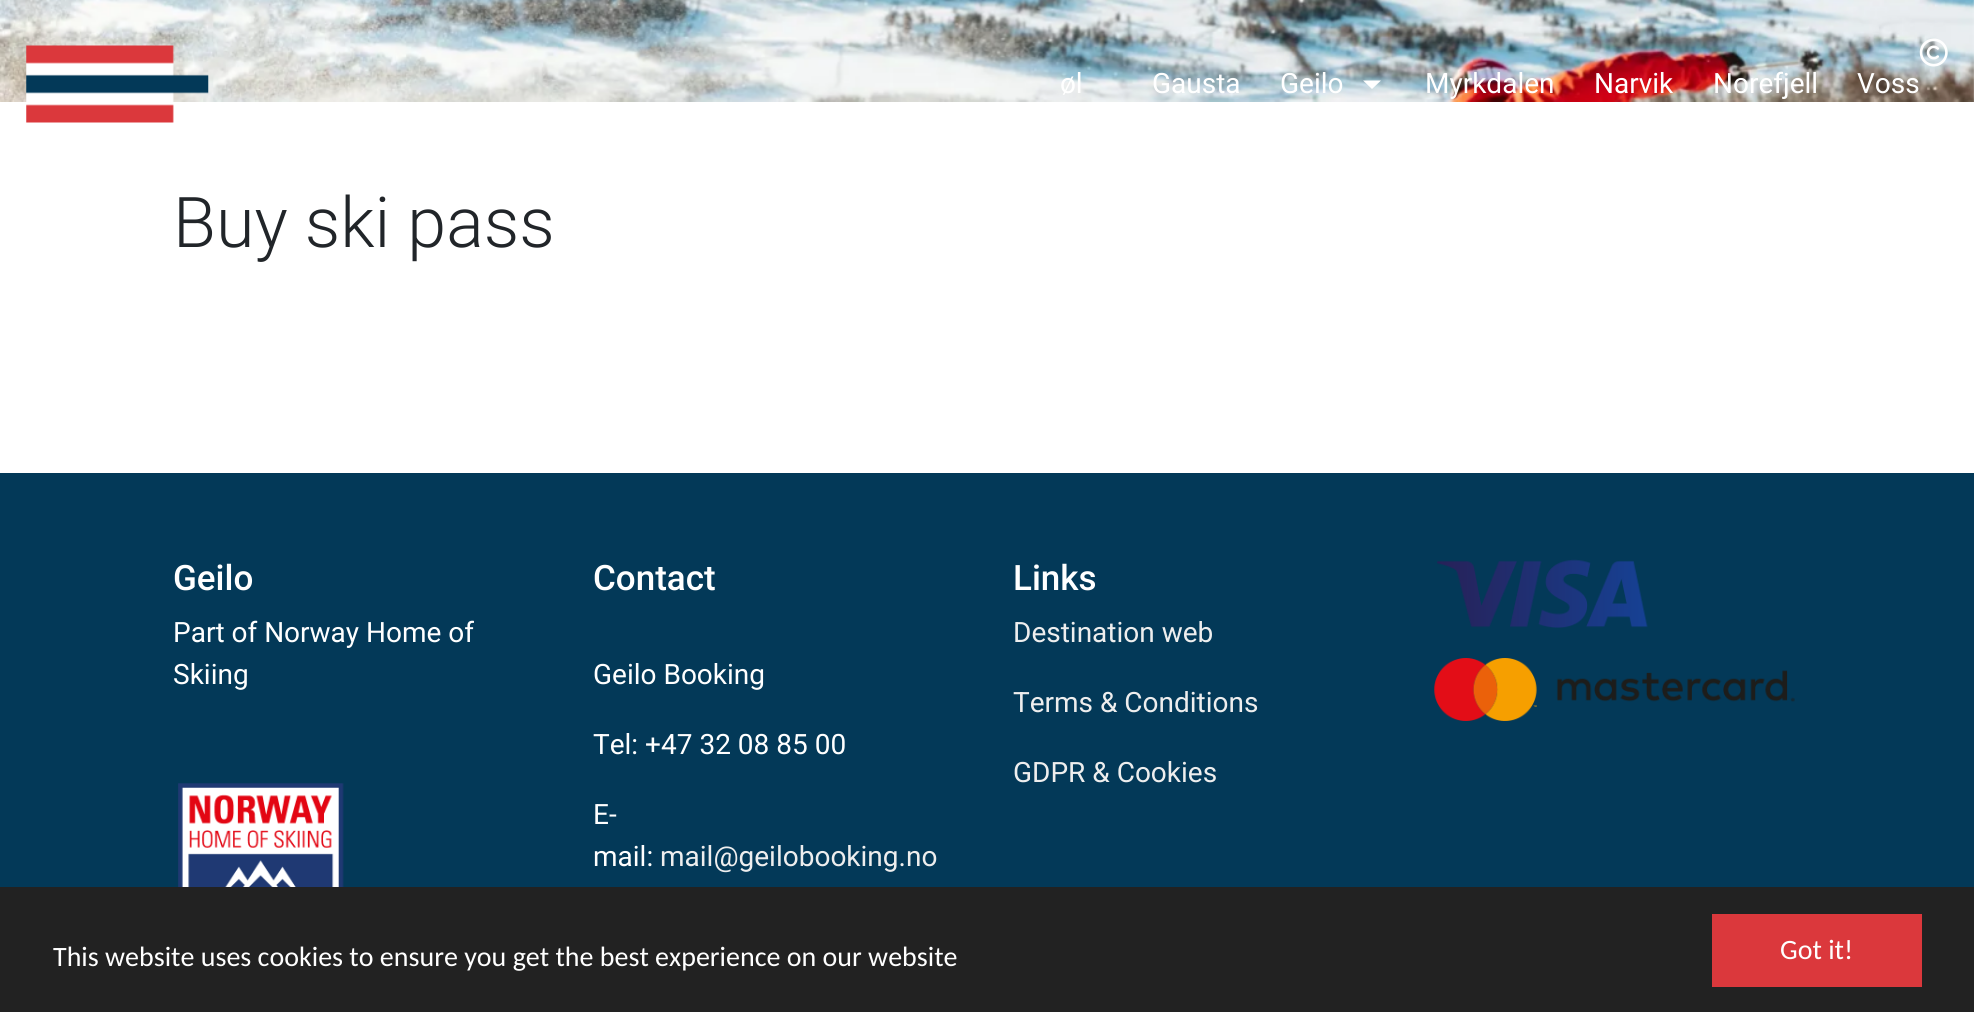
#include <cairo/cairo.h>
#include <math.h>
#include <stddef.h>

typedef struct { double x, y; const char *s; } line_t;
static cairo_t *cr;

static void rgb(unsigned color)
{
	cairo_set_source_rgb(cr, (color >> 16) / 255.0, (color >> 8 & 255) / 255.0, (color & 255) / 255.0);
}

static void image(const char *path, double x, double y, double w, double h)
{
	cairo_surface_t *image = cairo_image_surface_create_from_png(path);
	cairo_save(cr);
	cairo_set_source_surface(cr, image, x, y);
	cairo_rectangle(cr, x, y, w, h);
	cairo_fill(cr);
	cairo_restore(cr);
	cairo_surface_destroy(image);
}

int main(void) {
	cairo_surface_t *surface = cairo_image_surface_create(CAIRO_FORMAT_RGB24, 1974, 1012);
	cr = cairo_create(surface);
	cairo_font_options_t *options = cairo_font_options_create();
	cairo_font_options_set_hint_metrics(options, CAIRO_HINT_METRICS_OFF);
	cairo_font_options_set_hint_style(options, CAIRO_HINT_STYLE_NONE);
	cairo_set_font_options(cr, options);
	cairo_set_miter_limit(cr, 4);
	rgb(0xffffff);
	cairo_paint(cr);
	image("img/2.png", 0, 0, 1974, 102);
	image("img/1.png", 26, 45, 183, 78);
	rgb(0xffffff);
	cairo_new_path(cr);
	cairo_move_to(cr, 1363, 80.5);
	cairo_line_to(cr, 1381, 80.5);
	cairo_line_to(cr, 1372, 89);
	cairo_close_path(cr);
	cairo_fill(cr);
	image("img/3.png", 1919, 38, 29, 29);
	rgb(0x033958);
	cairo_rectangle(cr, 0, 473, 1974, 414);
	cairo_fill(cr);
	image("img/4.png", 178, 783, 166, 104);
	image("img/5.png", 1437, 559, 211, 69);
	image("img/6.png", 1434, 658, 361, 63);
	rgb(0x222222);
	cairo_rectangle(cr, 0, 887, 1974, 125);
	cairo_fill(cr);
	rgb(0xdb383c);
	cairo_rectangle(cr, 1712, 914, 210, 73);
	cairo_fill(cr);
	cairo_select_font_face(cr, "Roboto", CAIRO_FONT_SLANT_NORMAL, CAIRO_FONT_WEIGHT_NORMAL);
	cairo_set_font_size(cr, 28);
	rgb(0xffffff);
	{
		static const line_t items[] = {
			{1060, 93, "øl"},
			{1152, 93, "Gausta"},
			{1280, 93, "Geilo"},
			{1425, 93, "Myrkdalen"},
			{1594, 93, "Narvik"},
			{1713, 93, "Norefjell"},
			{1857, 93, "Voss"},
		};
		for (size_t i = 0; i < sizeof items / sizeof *items; i++) {
			cairo_move_to(cr, items[i].x, items[i].y);
			cairo_show_text(cr, items[i].s);
		}
	}
	cairo_select_font_face(cr, "Roboto Light", CAIRO_FONT_SLANT_NORMAL, CAIRO_FONT_WEIGHT_NORMAL);
	cairo_set_font_size(cr, 70);
	rgb(0x212529);
	cairo_move_to(cr, 173, 247);
	cairo_show_text(cr, "Buy ski pass");
	cairo_select_font_face(cr, "Roboto Medium", CAIRO_FONT_SLANT_NORMAL, CAIRO_FONT_WEIGHT_NORMAL);
	cairo_set_font_size(cr, 35);
	rgb(0xffffff);
	cairo_move_to(cr, 173, 590);
	cairo_show_text(cr, "Geilo");
	cairo_select_font_face(cr, "Roboto", CAIRO_FONT_SLANT_NORMAL, CAIRO_FONT_WEIGHT_NORMAL);
	cairo_set_font_size(cr, 28);
	cairo_move_to(cr, 173, 642);
	cairo_show_text(cr, "Part of Norway Home of");
	cairo_move_to(cr, 173, 684);
	cairo_show_text(cr, "Skiing");
	cairo_select_font_face(cr, "Roboto Medium", CAIRO_FONT_SLANT_NORMAL, CAIRO_FONT_WEIGHT_NORMAL);
	cairo_set_font_size(cr, 35);
	cairo_move_to(cr, 593, 590);
	cairo_show_text(cr, "Contact");
	cairo_select_font_face(cr, "Roboto", CAIRO_FONT_SLANT_NORMAL, CAIRO_FONT_WEIGHT_NORMAL);
	cairo_set_font_size(cr, 28);
	{
		static const line_t items[] = {
			{593, 684, "Geilo Booking"},
			{593, 754, "Tel: +47 32 08 85 00"},
			{593, 824, "E-"},
			{593, 866, "mail:"},
		};
		for (size_t i = 0; i < sizeof items / sizeof *items; i++) {
			cairo_move_to(cr, items[i].x, items[i].y);
			cairo_show_text(cr, items[i].s);
		}
	}
	rgb(0xeeeeee);
	cairo_move_to(cr, 660, 866);
	cairo_show_text(cr, "mail@geilobooking.no");
	cairo_select_font_face(cr, "Roboto Medium", CAIRO_FONT_SLANT_NORMAL, CAIRO_FONT_WEIGHT_NORMAL);
	cairo_set_font_size(cr, 35);
	rgb(0xffffff);
	cairo_move_to(cr, 1013, 590);
	cairo_show_text(cr, "Links");
	cairo_select_font_face(cr, "Roboto", CAIRO_FONT_SLANT_NORMAL, CAIRO_FONT_WEIGHT_NORMAL);
	cairo_set_font_size(cr, 28);
	rgb(0xeeeeee);
	{
		static const line_t items[] = {
			{1013, 642, "Destination web"},
			{1013, 712, "Terms & Conditions"},
			{1013, 782, "GDPR & Cookies"},
		};
		for (size_t i = 0; i < sizeof items / sizeof *items; i++) {
			cairo_move_to(cr, items[i].x, items[i].y);
			cairo_show_text(cr, items[i].s);
		}
	}
	cairo_select_font_face(cr, "Carlito", CAIRO_FONT_SLANT_NORMAL, CAIRO_FONT_WEIGHT_NORMAL);
	rgb(0xffffff);
	cairo_move_to(cr, 53, 966);
	cairo_show_text(cr, "This website uses cookies to ensure you get the best experience on our website");
	cairo_move_to(cr, 1780, 959);
	cairo_show_text(cr, "Got it!");
	cairo_surface_write_to_png(surface, "page.png");
	cairo_font_options_destroy(options);
	cairo_destroy(cr);
	cairo_surface_destroy(surface);
	return 0;
}
